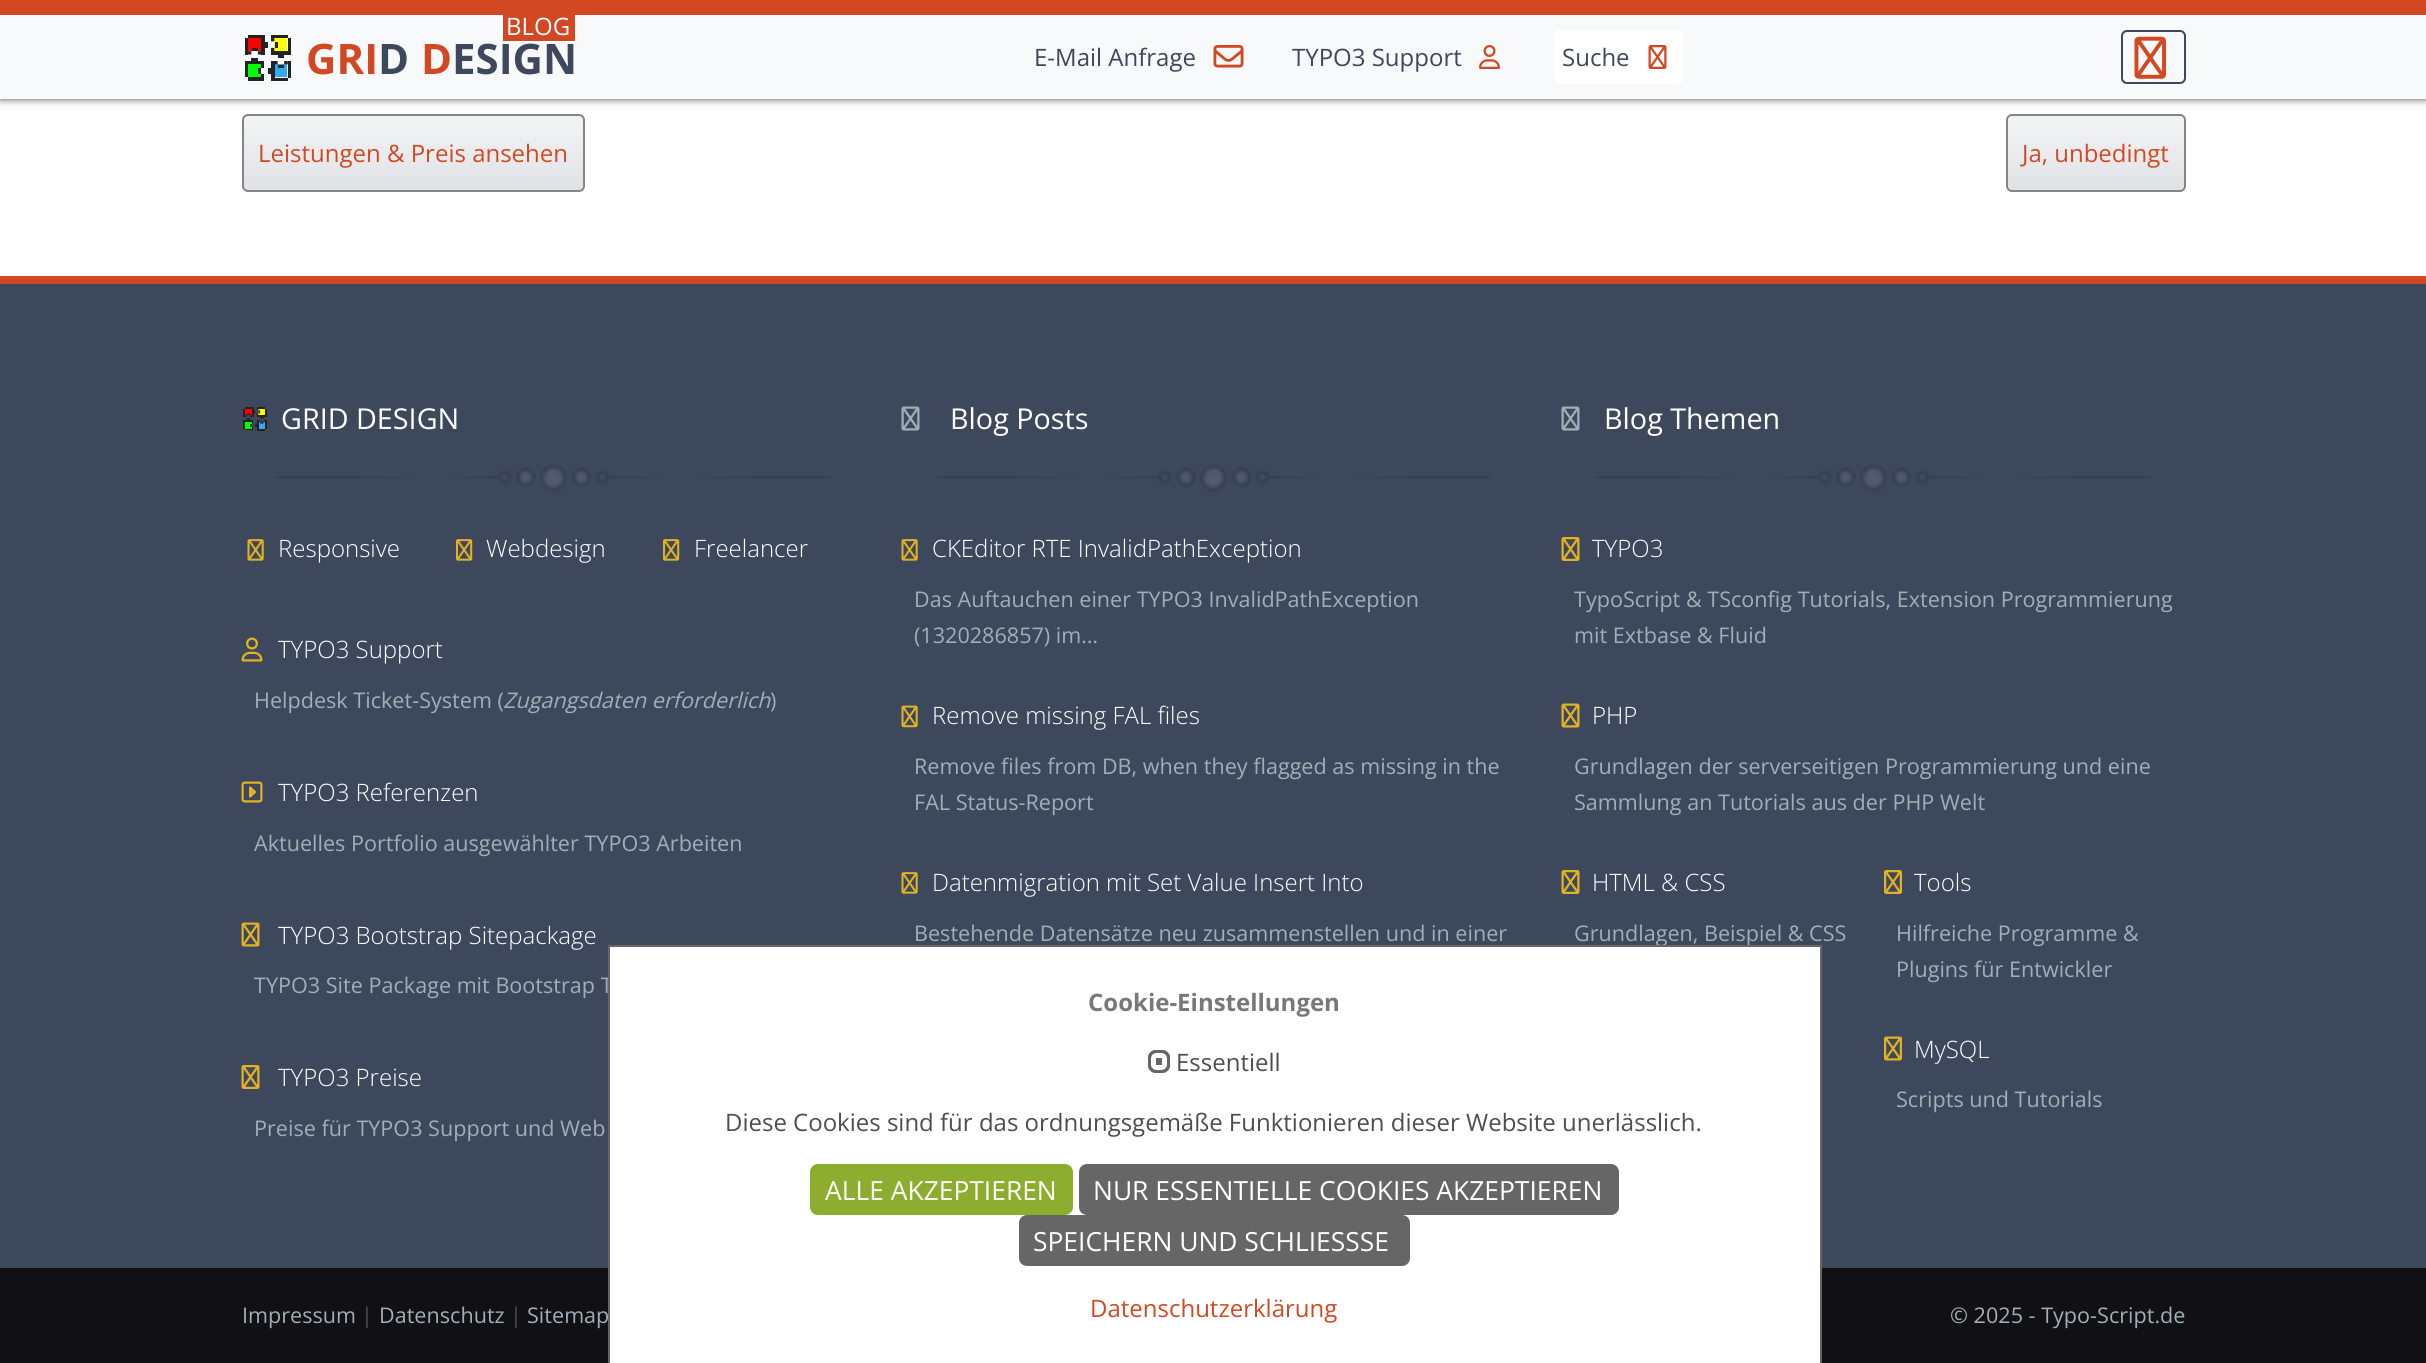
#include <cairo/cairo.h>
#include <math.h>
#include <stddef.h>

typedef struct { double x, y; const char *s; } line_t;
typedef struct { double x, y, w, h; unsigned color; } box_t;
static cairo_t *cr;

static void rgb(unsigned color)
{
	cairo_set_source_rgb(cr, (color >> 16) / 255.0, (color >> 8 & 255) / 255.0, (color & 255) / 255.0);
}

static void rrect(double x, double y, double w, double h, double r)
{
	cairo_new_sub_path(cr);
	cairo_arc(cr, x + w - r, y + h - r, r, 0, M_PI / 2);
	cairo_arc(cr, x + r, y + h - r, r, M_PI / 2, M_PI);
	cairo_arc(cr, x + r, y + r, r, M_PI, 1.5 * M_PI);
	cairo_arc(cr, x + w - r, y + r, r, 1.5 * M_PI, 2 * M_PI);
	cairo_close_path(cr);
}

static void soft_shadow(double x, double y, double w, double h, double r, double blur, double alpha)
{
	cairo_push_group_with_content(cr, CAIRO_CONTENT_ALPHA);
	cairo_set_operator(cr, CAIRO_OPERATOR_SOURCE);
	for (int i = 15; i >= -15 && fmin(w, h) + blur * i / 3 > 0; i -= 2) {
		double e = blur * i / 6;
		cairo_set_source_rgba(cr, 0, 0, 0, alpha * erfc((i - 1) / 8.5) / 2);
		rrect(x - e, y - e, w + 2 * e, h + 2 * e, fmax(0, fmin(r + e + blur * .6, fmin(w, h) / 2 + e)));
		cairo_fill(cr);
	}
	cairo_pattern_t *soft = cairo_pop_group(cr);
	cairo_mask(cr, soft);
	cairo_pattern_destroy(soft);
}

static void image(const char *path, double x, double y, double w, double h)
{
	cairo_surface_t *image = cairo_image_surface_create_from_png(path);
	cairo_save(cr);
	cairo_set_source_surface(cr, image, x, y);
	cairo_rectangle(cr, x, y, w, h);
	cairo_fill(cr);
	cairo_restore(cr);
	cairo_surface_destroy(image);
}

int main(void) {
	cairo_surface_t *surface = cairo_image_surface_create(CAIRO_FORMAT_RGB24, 2426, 1363);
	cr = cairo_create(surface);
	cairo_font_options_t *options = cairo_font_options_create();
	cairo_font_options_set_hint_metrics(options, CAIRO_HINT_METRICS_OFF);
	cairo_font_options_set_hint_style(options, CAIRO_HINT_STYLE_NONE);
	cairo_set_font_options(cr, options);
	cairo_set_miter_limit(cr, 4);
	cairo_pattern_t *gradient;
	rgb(0xffffff);
	cairo_paint(cr);
	rgb(0x4e4e4e);
	soft_shadow(0, 0, 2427, 99, 0, 4, 1);
	{
		static const box_t items[] = {
			{0, 15, 2426, 84, 0xf8f9fa},
			{0, 0, 2426, 15, 0xd24823},
			{503, 15, 72, 26, 0xd24823},
		};
		for (size_t i = 0; i < sizeof items / sizeof *items; i++) {
			rgb(items[i].color);
			cairo_rectangle(cr, items[i].x, items[i].y, items[i].w, items[i].h);
			cairo_fill(cr);
		}
	}
	image("img/1.png", 245, 35, 46, 46);
	image("img/2.png", 1213, 45, 31, 23);
	image("img/3.png", 1479, 45, 21, 24);
	rgb(0xffffff);
	rrect(1554, 30, 129, 54, 6);
	cairo_fill(cr);
	image("img/4.png", 1648, 45, 19, 24);
	rrect(2122, 31, 63, 52, 5);
	rgb(0x3d485d);
	cairo_stroke(cr);
	image("img/5.png", 2134, 36, 32, 43);
	gradient = cairo_pattern_create_linear(413, 70, 413, 239);
	cairo_pattern_add_color_stop_rgba(gradient, 0, 1, 1, 1, 1);
	cairo_pattern_add_color_stop_rgba(gradient, 1, 0.827, 0.839, 0.859, 1);
	cairo_set_source(cr, gradient);
	cairo_pattern_destroy(gradient);
	rrect(243, 115, 341, 76, 5);
	cairo_fill_preserve(cr);
	rgb(0x858585);
	cairo_stroke(cr);
	gradient = cairo_pattern_create_linear(2096, 70, 2096, 239);
	cairo_pattern_add_color_stop_rgba(gradient, 0, 1, 1, 1, 1);
	cairo_pattern_add_color_stop_rgba(gradient, 1, 0.827, 0.839, 0.859, 1);
	cairo_set_source(cr, gradient);
	cairo_pattern_destroy(gradient);
	rrect(2007, 115, 178, 76, 5);
	cairo_fill_preserve(cr);
	rgb(0x858585);
	cairo_stroke(cr);
	rgb(0x3d485d);
	cairo_rectangle(cr, 0, 284, 2426, 984);
	cairo_fill(cr);
	rgb(0xd24823);
	cairo_rectangle(cr, 0, 276, 2426, 8);
	cairo_fill(cr);
	image("img/6.png", 243, 407, 24, 24);
	image("img/7.png", 276, 464, 555, 28);
	image("img/8.png", 247, 539, 17, 22);
	image("img/9.png", 456, 539, 17, 22);
	image("img/9.png", 663, 539, 17, 22);
	image("img/10.png", 241, 637, 22, 25);
	image("img/11.png", 241, 781, 22, 22);
	image("img/12.png", 241, 922, 19, 25);
	image("img/13.png", 241, 1065, 19, 24);
	image("img/14.png", 901, 406, 19, 25);
	image("img/7.png", 936, 464, 555, 28);
	image("img/8.png", 901, 539, 17, 22);
	image("img/15.png", 901, 705, 17, 23);
	image("img/8.png", 901, 872, 17, 22);
	image("img/14.png", 1561, 406, 19, 25);
	image("img/7.png", 1596, 464, 555, 28);
	image("img/13.png", 1561, 537, 19, 24);
	image("img/12.png", 1561, 703, 19, 25);
	image("img/13.png", 1561, 870, 19, 24);
	image("img/16.png", 1884, 870, 18, 24);
	image("img/17.png", 1884, 1036, 18, 25);
	rgb(0x111015);
	cairo_rectangle(cr, 0, 1268, 2426, 95);
	cairo_fill(cr);
	cairo_select_font_face(cr, "Open Sans", CAIRO_FONT_SLANT_NORMAL, CAIRO_FONT_WEIGHT_NORMAL);
	cairo_set_font_size(cr, 24);
	rgb(0xffffff);
	cairo_move_to(cr, 506, 35);
	cairo_show_text(cr, "BLOG");
	cairo_select_font_face(cr, "Open Sans", CAIRO_FONT_SLANT_NORMAL, CAIRO_FONT_WEIGHT_BOLD);
	cairo_set_font_size(cr, 42);
	rgb(0xd24823);
	cairo_move_to(cr, 306, 74);
	cairo_show_text(cr, "GRI");
	rgb(0x3d485d);
	cairo_move_to(cr, 378, 74);
	cairo_show_text(cr, "D");
	rgb(0xd24823);
	cairo_move_to(cr, 421, 74);
	cairo_show_text(cr, "D");
	rgb(0x3d485d);
	cairo_move_to(cr, 452, 74);
	cairo_show_text(cr, "ESIGN");
	cairo_select_font_face(cr, "Open Sans", CAIRO_FONT_SLANT_NORMAL, CAIRO_FONT_WEIGHT_NORMAL);
	cairo_set_font_size(cr, 24);
	{
		static const line_t items[] = {
			{1034, 66, "E-Mail Anfrage"},
			{1292, 66, "TYPO3 Support"},
			{1562, 66, "Suche"},
		};
		for (size_t i = 0; i < sizeof items / sizeof *items; i++) {
			cairo_move_to(cr, items[i].x, items[i].y);
			cairo_show_text(cr, items[i].s);
		}
	}
	rgb(0xd24823);
	cairo_move_to(cr, 258, 162);
	cairo_show_text(cr, "Leistungen & Preis ansehen");
	cairo_move_to(cr, 2022, 162);
	cairo_show_text(cr, "Ja, unbedingt");
	cairo_set_font_size(cr, 28.75);
	rgb(0xffffff);
	cairo_move_to(cr, 281, 429);
	cairo_show_text(cr, "GRID DESIGN");
	cairo_select_font_face(cr, "Open Sans Light", CAIRO_FONT_SLANT_NORMAL, CAIRO_FONT_WEIGHT_NORMAL);
	cairo_set_font_size(cr, 24);
	{
		static const line_t items[] = {
			{278, 557, "Responsive"},
			{486, 557, "Webdesign"},
			{694, 557, "Freelancer"},
			{278, 658, "TYPO3 Support"},
		};
		for (size_t i = 0; i < sizeof items / sizeof *items; i++) {
			cairo_move_to(cr, items[i].x, items[i].y);
			cairo_show_text(cr, items[i].s);
		}
	}
	cairo_select_font_face(cr, "Open Sans", CAIRO_FONT_SLANT_NORMAL, CAIRO_FONT_WEIGHT_NORMAL);
	cairo_set_font_size(cr, 21.6);
	rgb(0xa0afb6);
	cairo_move_to(cr, 254, 708);
	cairo_show_text(cr, "Helpdesk Ticket-System (");
	cairo_select_font_face(cr, "Open Sans", CAIRO_FONT_SLANT_ITALIC, CAIRO_FONT_WEIGHT_NORMAL);
	cairo_move_to(cr, 503, 708);
	cairo_show_text(cr, "Zugangsdaten erforderlich");
	cairo_select_font_face(cr, "Open Sans", CAIRO_FONT_SLANT_NORMAL, CAIRO_FONT_WEIGHT_NORMAL);
	cairo_move_to(cr, 770, 708);
	cairo_show_text(cr, ")");
	cairo_select_font_face(cr, "Open Sans Light", CAIRO_FONT_SLANT_NORMAL, CAIRO_FONT_WEIGHT_NORMAL);
	cairo_set_font_size(cr, 24);
	rgb(0xffffff);
	cairo_move_to(cr, 278, 801);
	cairo_show_text(cr, "TYPO3 Referenzen");
	cairo_select_font_face(cr, "Open Sans", CAIRO_FONT_SLANT_NORMAL, CAIRO_FONT_WEIGHT_NORMAL);
	cairo_set_font_size(cr, 21.6);
	rgb(0xa0afb6);
	cairo_move_to(cr, 254, 851);
	cairo_show_text(cr, "Aktuelles Portfolio ausgewählter TYPO3 Arbeiten");
	cairo_select_font_face(cr, "Open Sans Light", CAIRO_FONT_SLANT_NORMAL, CAIRO_FONT_WEIGHT_NORMAL);
	cairo_set_font_size(cr, 24);
	rgb(0xffffff);
	cairo_move_to(cr, 278, 944);
	cairo_show_text(cr, "TYPO3 Bootstrap Sitepackage");
	cairo_select_font_face(cr, "Open Sans", CAIRO_FONT_SLANT_NORMAL, CAIRO_FONT_WEIGHT_NORMAL);
	cairo_set_font_size(cr, 21.6);
	rgb(0xa0afb6);
	cairo_move_to(cr, 254, 993);
	cairo_show_text(cr, "TYPO3 Site Package mit Bootstrap T");
	cairo_select_font_face(cr, "Open Sans Light", CAIRO_FONT_SLANT_NORMAL, CAIRO_FONT_WEIGHT_NORMAL);
	cairo_set_font_size(cr, 24);
	rgb(0xffffff);
	cairo_move_to(cr, 278, 1086);
	cairo_show_text(cr, "TYPO3 Preise");
	cairo_select_font_face(cr, "Open Sans", CAIRO_FONT_SLANT_NORMAL, CAIRO_FONT_WEIGHT_NORMAL);
	cairo_set_font_size(cr, 21.6);
	rgb(0xa0afb6);
	cairo_move_to(cr, 254, 1136);
	cairo_show_text(cr, "Preise für TYPO3 Support und Web");
	cairo_set_font_size(cr, 28.75);
	rgb(0xffffff);
	cairo_move_to(cr, 950, 429);
	cairo_show_text(cr, "Blog Posts");
	cairo_select_font_face(cr, "Open Sans Light", CAIRO_FONT_SLANT_NORMAL, CAIRO_FONT_WEIGHT_NORMAL);
	cairo_set_font_size(cr, 24);
	cairo_move_to(cr, 932, 557);
	cairo_show_text(cr, "CKEditor RTE InvalidPathException");
	cairo_select_font_face(cr, "Open Sans", CAIRO_FONT_SLANT_NORMAL, CAIRO_FONT_WEIGHT_NORMAL);
	cairo_set_font_size(cr, 21.6);
	rgb(0xa0afb6);
	cairo_move_to(cr, 914, 607);
	cairo_show_text(cr, "Das Auftauchen einer TYPO3 InvalidPathException");
	cairo_move_to(cr, 914, 643);
	cairo_show_text(cr, "(1320286857) im…");
	cairo_select_font_face(cr, "Open Sans Light", CAIRO_FONT_SLANT_NORMAL, CAIRO_FONT_WEIGHT_NORMAL);
	cairo_set_font_size(cr, 24);
	rgb(0xffffff);
	cairo_move_to(cr, 932, 724);
	cairo_show_text(cr, "Remove missing FAL files");
	cairo_select_font_face(cr, "Open Sans", CAIRO_FONT_SLANT_NORMAL, CAIRO_FONT_WEIGHT_NORMAL);
	cairo_set_font_size(cr, 21.6);
	rgb(0xa0afb6);
	cairo_move_to(cr, 914, 774);
	cairo_show_text(cr, "Remove files from DB, when they flagged as missing in the");
	cairo_move_to(cr, 914, 810);
	cairo_show_text(cr, "FAL Status-Report");
	cairo_select_font_face(cr, "Open Sans Light", CAIRO_FONT_SLANT_NORMAL, CAIRO_FONT_WEIGHT_NORMAL);
	cairo_set_font_size(cr, 24);
	rgb(0xffffff);
	cairo_move_to(cr, 932, 891);
	cairo_show_text(cr, "Datenmigration mit Set Value Insert Into");
	cairo_select_font_face(cr, "Open Sans", CAIRO_FONT_SLANT_NORMAL, CAIRO_FONT_WEIGHT_NORMAL);
	cairo_set_font_size(cr, 21.6);
	rgb(0xa0afb6);
	cairo_move_to(cr, 914, 941);
	cairo_show_text(cr, "Bestehende Datensätze neu zusammenstellen und in einer");
	cairo_set_font_size(cr, 28.75);
	rgb(0xffffff);
	cairo_move_to(cr, 1604, 429);
	cairo_show_text(cr, "Blog Themen");
	cairo_select_font_face(cr, "Open Sans Light", CAIRO_FONT_SLANT_NORMAL, CAIRO_FONT_WEIGHT_NORMAL);
	cairo_set_font_size(cr, 24);
	cairo_move_to(cr, 1592, 557);
	cairo_show_text(cr, "TYPO3");
	cairo_select_font_face(cr, "Open Sans", CAIRO_FONT_SLANT_NORMAL, CAIRO_FONT_WEIGHT_NORMAL);
	cairo_set_font_size(cr, 21.6);
	rgb(0xa0afb6);
	cairo_move_to(cr, 1574, 607);
	cairo_show_text(cr, "TypoScript & TSconfig Tutorials, Extension Programmierung");
	cairo_move_to(cr, 1574, 643);
	cairo_show_text(cr, "mit Extbase & Fluid");
	cairo_select_font_face(cr, "Open Sans Light", CAIRO_FONT_SLANT_NORMAL, CAIRO_FONT_WEIGHT_NORMAL);
	cairo_set_font_size(cr, 24);
	rgb(0xffffff);
	cairo_move_to(cr, 1592, 724);
	cairo_show_text(cr, "PHP");
	cairo_select_font_face(cr, "Open Sans", CAIRO_FONT_SLANT_NORMAL, CAIRO_FONT_WEIGHT_NORMAL);
	cairo_set_font_size(cr, 21.6);
	rgb(0xa0afb6);
	cairo_move_to(cr, 1574, 774);
	cairo_show_text(cr, "Grundlagen der serverseitigen Programmierung und eine");
	cairo_move_to(cr, 1574, 810);
	cairo_show_text(cr, "Sammlung an Tutorials aus der PHP Welt");
	cairo_select_font_face(cr, "Open Sans Light", CAIRO_FONT_SLANT_NORMAL, CAIRO_FONT_WEIGHT_NORMAL);
	cairo_set_font_size(cr, 24);
	rgb(0xffffff);
	cairo_move_to(cr, 1592, 891);
	cairo_show_text(cr, "HTML & CSS");
	cairo_select_font_face(cr, "Open Sans", CAIRO_FONT_SLANT_NORMAL, CAIRO_FONT_WEIGHT_NORMAL);
	cairo_set_font_size(cr, 21.6);
	rgb(0xa0afb6);
	cairo_move_to(cr, 1574, 941);
	cairo_show_text(cr, "Grundlagen, Beispiel & CSS");
	cairo_select_font_face(cr, "Open Sans Light", CAIRO_FONT_SLANT_NORMAL, CAIRO_FONT_WEIGHT_NORMAL);
	cairo_set_font_size(cr, 24);
	rgb(0xffffff);
	cairo_move_to(cr, 1914, 891);
	cairo_show_text(cr, "Tools");
	cairo_select_font_face(cr, "Open Sans", CAIRO_FONT_SLANT_NORMAL, CAIRO_FONT_WEIGHT_NORMAL);
	cairo_set_font_size(cr, 21.6);
	rgb(0xa0afb6);
	cairo_move_to(cr, 1896, 941);
	cairo_show_text(cr, "Hilfreiche Programme &");
	cairo_move_to(cr, 1896, 977);
	cairo_show_text(cr, "Plugins für Entwickler");
	cairo_select_font_face(cr, "Open Sans Light", CAIRO_FONT_SLANT_NORMAL, CAIRO_FONT_WEIGHT_NORMAL);
	cairo_set_font_size(cr, 24);
	rgb(0xffffff);
	cairo_move_to(cr, 1914, 1058);
	cairo_show_text(cr, "MySQL");
	cairo_select_font_face(cr, "Open Sans", CAIRO_FONT_SLANT_NORMAL, CAIRO_FONT_WEIGHT_NORMAL);
	cairo_set_font_size(cr, 21.6);
	rgb(0xa0afb6);
	cairo_move_to(cr, 1896, 1107);
	cairo_show_text(cr, "Scripts und Tutorials");
	cairo_move_to(cr, 242, 1323);
	cairo_show_text(cr, "Impressum");
	rgb(0x4e4e4e);
	cairo_move_to(cr, 361, 1323);
	cairo_show_text(cr, "|");
	rgb(0xa0afb6);
	cairo_move_to(cr, 379, 1323);
	cairo_show_text(cr, "Datenschutz");
	rgb(0x4e4e4e);
	cairo_move_to(cr, 510, 1323);
	cairo_show_text(cr, "|");
	rgb(0xa0afb6);
	cairo_move_to(cr, 527, 1323);
	cairo_show_text(cr, "Sitemap");
	cairo_move_to(cr, 1950, 1323);
	cairo_show_text(cr, "© 2025 - Typo-Script.de");
	{
		static const box_t items[] = {
			{610, 947, 1210, 416, 0xffffff},
			{608, 945, 1213, 2, 0x666666},
			{1820, 945, 2, 418, 0x666666},
			{608, 945, 2, 418, 0x666666},
		};
		for (size_t i = 0; i < sizeof items / sizeof *items; i++) {
			rgb(items[i].color);
			cairo_rectangle(cr, items[i].x, items[i].y, items[i].w, items[i].h);
			cairo_fill(cr);
		}
	}
	cairo_select_font_face(cr, "Open Sans", CAIRO_FONT_SLANT_NORMAL, CAIRO_FONT_WEIGHT_BOLD);
	cairo_set_font_size(cr, 24);
	rgb(0x787878);
	cairo_move_to(cr, 1088, 1011);
	cairo_show_text(cr, "Cookie-Einstellungen");
	rgb(0x666666);
	rrect(1148, 1050, 22, 23, 8);
	cairo_fill(cr);
	rrect(1153.5, 1055.5, 11, 12, 2.5);
	rgb(0xffffff);
	cairo_set_line_width(cr, 5);
	cairo_stroke(cr);
	rrect(1149.5, 1051.5, 19, 20, 6.5);
	rgb(0x666666);
	cairo_set_line_width(cr, 3);
	cairo_stroke(cr);
	cairo_select_font_face(cr, "Open Sans", CAIRO_FONT_SLANT_NORMAL, CAIRO_FONT_WEIGHT_NORMAL);
	rgb(0x4e4e4e);
	cairo_move_to(cr, 1176, 1071);
	cairo_show_text(cr, "Essentiell");
	cairo_move_to(cr, 725, 1131);
	cairo_show_text(cr, "Diese Cookies sind für das ordnungsgemäße Funktionieren dieser Website unerlässlich.");
	rgb(0x8cad2d);
	rrect(810, 1164, 263, 51, 8);
	cairo_fill(cr);
	cairo_set_font_size(cr, 26.4);
	rgb(0xffffff);
	cairo_move_to(cr, 825, 1200);
	cairo_show_text(cr, "ALLE AKZEPTIEREN");
	rgb(0x666666);
	rrect(1079, 1164, 540, 51, 8);
	cairo_fill(cr);
	rgb(0xffffff);
	cairo_move_to(cr, 1093, 1200);
	cairo_show_text(cr, "NUR ESSENTIELLE COOKIES AKZEPTIEREN");
	rgb(0x666666);
	rrect(1019, 1215, 391, 51, 8);
	cairo_fill(cr);
	rgb(0xffffff);
	cairo_move_to(cr, 1033, 1251);
	cairo_show_text(cr, "SPEICHERN UND SCHLIESSSE");
	cairo_set_font_size(cr, 24);
	rgb(0xd24823);
	cairo_move_to(cr, 1090, 1317);
	cairo_show_text(cr, "Datenschutzerklärung");
	cairo_surface_write_to_png(surface, "page.png");
	cairo_font_options_destroy(options);
	cairo_destroy(cr);
	cairo_surface_destroy(surface);
	return 0;
}
